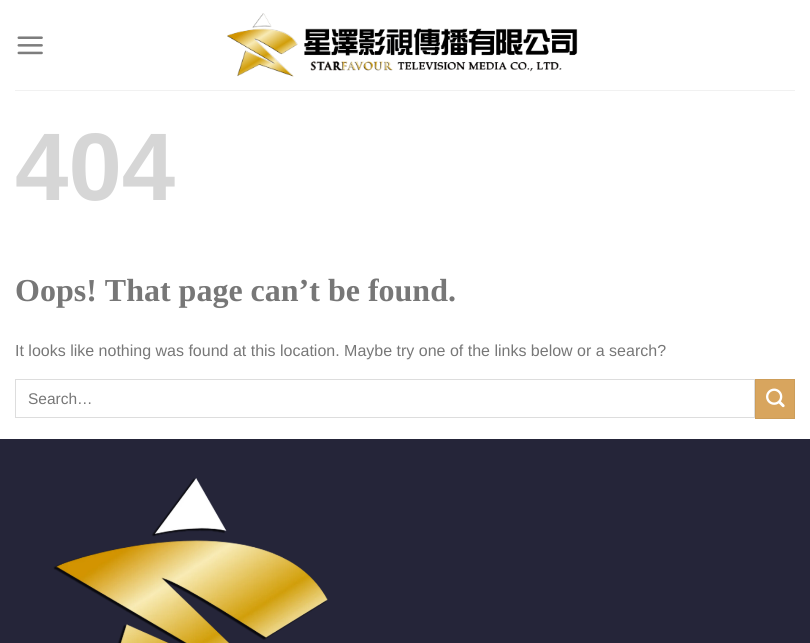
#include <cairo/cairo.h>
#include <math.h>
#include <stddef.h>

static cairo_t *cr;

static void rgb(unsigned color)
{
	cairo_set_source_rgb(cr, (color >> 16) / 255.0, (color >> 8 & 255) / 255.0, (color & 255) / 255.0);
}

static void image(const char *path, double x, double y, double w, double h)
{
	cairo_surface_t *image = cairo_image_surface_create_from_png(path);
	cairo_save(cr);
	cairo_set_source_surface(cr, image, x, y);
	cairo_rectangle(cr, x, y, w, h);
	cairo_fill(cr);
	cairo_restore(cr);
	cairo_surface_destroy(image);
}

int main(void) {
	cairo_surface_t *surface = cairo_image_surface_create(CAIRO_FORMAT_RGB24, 810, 643);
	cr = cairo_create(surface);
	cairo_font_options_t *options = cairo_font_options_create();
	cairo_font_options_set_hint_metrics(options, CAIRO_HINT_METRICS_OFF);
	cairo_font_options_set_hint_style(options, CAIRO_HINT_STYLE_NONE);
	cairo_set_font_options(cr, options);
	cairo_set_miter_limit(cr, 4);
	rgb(0xffffff);
	cairo_paint(cr);
	image("img/1.png", 17, 36, 26, 19);
	image("img/2.png", 227, 13, 351, 64);
	rgb(0xf1f1f1);
	cairo_rectangle(cr, 15, 90, 780, 1);
	cairo_fill(cr);
	cairo_rectangle(cr, 15.5, 379.5, 739, 38);
	rgb(0xdddddd);
	cairo_set_line_width(cr, 1);
	cairo_stroke(cr);
	rgb(0xd8a55e);
	cairo_rectangle(cr, 755.5, 379.5, 39, 39);
	cairo_fill_preserve(cr);
	rgb(0xcd9d59);
	cairo_stroke(cr);
	image("img/3.png", 766, 388, 19, 20);
	rgb(0x252539);
	cairo_rectangle(cr, 0, 439, 810, 204);
	cairo_fill(cr);
	image("img/4.png", 53, 478, 275, 165);
	cairo_select_font_face(cr, "Liberation Sans", CAIRO_FONT_SLANT_NORMAL, CAIRO_FONT_WEIGHT_BOLD);
	cairo_set_font_size(cr, 96);
	rgb(0xd6d6d6);
	cairo_move_to(cr, 15, 200);
	cairo_show_text(cr, "404");
	cairo_select_font_face(cr, "Liberation Serif", CAIRO_FONT_SLANT_NORMAL, CAIRO_FONT_WEIGHT_BOLD);
	cairo_set_font_size(cr, 32);
	rgb(0x777777);
	cairo_move_to(cr, 15, 301);
	cairo_show_text(cr, "Oops! That page can’t be found.");
	cairo_select_font_face(cr, "Liberation Sans", CAIRO_FONT_SLANT_NORMAL, CAIRO_FONT_WEIGHT_NORMAL);
	cairo_set_font_size(cr, 16);
	cairo_move_to(cr, 15, 356);
	cairo_show_text(cr, "It looks like nothing was found at this location. Maybe try one of the links below or a search?");
	cairo_set_font_size(cr, 15.5);
	cairo_move_to(cr, 28, 404);
	cairo_show_text(cr, "Search…");
	cairo_surface_write_to_png(surface, "page.png");
	cairo_font_options_destroy(options);
	cairo_destroy(cr);
	cairo_surface_destroy(surface);
	return 0;
}
